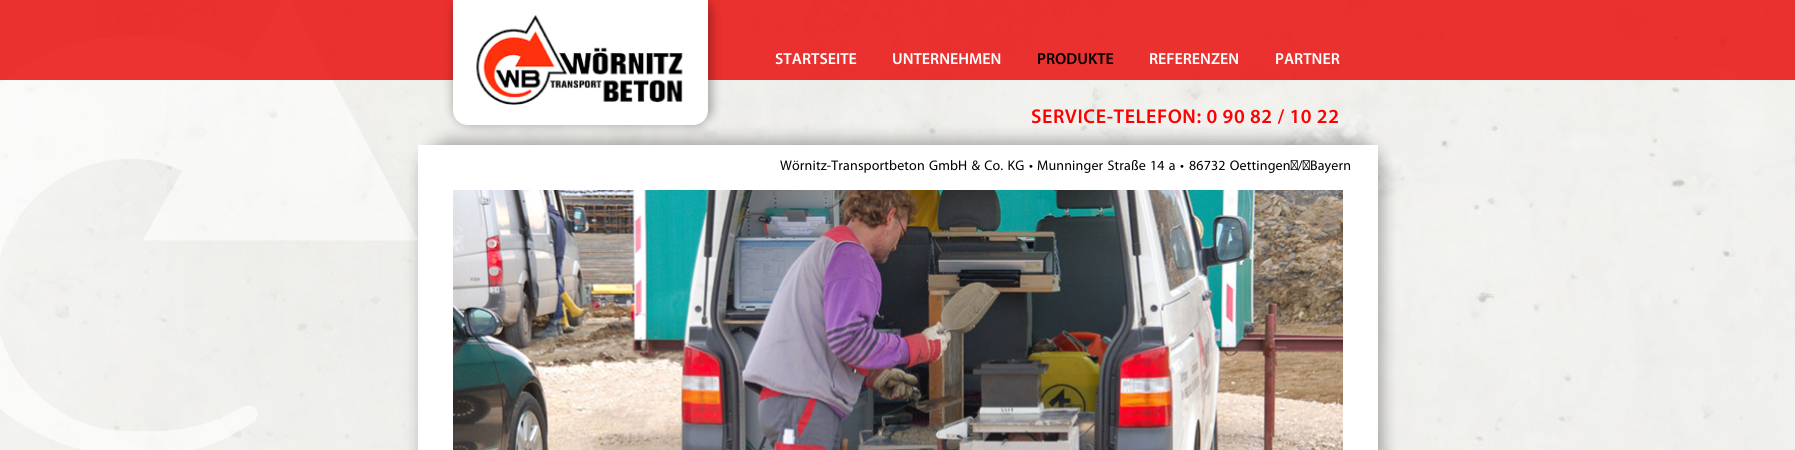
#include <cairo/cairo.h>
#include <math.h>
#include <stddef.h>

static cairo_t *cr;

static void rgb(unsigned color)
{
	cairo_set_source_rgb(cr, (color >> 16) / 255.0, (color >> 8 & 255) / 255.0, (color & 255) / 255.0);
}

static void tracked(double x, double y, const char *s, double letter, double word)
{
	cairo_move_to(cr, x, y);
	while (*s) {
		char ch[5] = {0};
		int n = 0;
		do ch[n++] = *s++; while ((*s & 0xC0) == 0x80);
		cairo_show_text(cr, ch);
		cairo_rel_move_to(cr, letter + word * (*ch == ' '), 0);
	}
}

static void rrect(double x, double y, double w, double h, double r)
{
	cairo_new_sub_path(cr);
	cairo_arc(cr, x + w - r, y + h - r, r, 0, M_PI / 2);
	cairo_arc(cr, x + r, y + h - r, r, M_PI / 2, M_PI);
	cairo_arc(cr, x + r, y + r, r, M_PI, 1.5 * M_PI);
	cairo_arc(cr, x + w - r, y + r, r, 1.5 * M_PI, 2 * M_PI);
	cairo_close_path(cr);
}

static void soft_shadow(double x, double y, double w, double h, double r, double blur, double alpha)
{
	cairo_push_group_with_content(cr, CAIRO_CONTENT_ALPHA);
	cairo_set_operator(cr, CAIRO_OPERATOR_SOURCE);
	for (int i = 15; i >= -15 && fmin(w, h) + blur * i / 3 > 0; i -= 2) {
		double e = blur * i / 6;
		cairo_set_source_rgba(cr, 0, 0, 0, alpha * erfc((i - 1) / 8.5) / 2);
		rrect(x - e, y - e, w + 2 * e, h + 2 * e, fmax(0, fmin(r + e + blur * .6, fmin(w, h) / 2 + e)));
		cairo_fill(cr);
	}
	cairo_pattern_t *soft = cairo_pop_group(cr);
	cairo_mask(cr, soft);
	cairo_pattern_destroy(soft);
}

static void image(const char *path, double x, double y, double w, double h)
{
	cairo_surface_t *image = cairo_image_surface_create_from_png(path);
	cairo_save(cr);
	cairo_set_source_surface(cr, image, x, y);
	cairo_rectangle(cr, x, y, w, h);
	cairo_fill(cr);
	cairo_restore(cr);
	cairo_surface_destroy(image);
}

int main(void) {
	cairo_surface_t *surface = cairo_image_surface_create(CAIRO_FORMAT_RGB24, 1795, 450);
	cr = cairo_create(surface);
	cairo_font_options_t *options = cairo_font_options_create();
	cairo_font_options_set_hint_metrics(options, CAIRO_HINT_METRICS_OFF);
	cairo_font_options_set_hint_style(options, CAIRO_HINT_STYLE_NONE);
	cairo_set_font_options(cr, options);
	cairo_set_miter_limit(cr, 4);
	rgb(0xffffff);
	cairo_paint(cr);
	image("img/1.png", 0, 0, 1795, 450);
	image("img/2.png", 0, 0, 418, 450);
	cairo_set_source_rgba(cr, 0.91, 0.008, 0, 0.8);
	cairo_rectangle(cr, 0, 0, 1795, 80);
	cairo_fill(cr);
	rgb(0x000000);
	soft_shadow(453, -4, 259, 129, 17, 5, 0.3);
	soft_shadow(421, 140, 962, 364, 31, 7.5, 0.3);
	rgb(0xffffff);
	cairo_new_path(cr);
	cairo_move_to(cr, 453, 0);
	cairo_line_to(cr, 708, 0);
	cairo_line_to(cr, 708, 110);
	cairo_curve_to(cr, 708, 118.5, 701.5, 125, 693, 125);
	cairo_line_to(cr, 468, 125);
	cairo_curve_to(cr, 459.5, 125, 453, 118.5, 453, 110);
	cairo_close_path(cr);
	cairo_fill(cr);
	image("img/3.png", 476, 14, 207, 91);
	cairo_rectangle(cr, 418, 145, 960, 305);
	cairo_fill(cr);
	image("img/4.png", 453, 190, 890, 260);
	cairo_select_font_face(cr, "Myriad SemiBold", CAIRO_FONT_SLANT_NORMAL, CAIRO_FONT_WEIGHT_NORMAL);
	cairo_set_font_size(cr, 16);
	cairo_move_to(cr, 775, 64);
	cairo_show_text(cr, "STARTSEITE");
	cairo_move_to(cr, 892, 64);
	cairo_show_text(cr, "UNTERNEHMEN");
	rgb(0x000000);
	cairo_move_to(cr, 1037, 64);
	cairo_show_text(cr, "PRODUKTE");
	rgb(0xffffff);
	cairo_move_to(cr, 1149, 64);
	cairo_show_text(cr, "REFERENZEN");
	cairo_move_to(cr, 1275, 64);
	cairo_show_text(cr, "PARTNER");
	cairo_set_font_size(cr, 20);
	rgb(0xff0000);
	tracked(1031, 123, "SERVICE-TELEFON: 0 90 82 / 10 22", 0.6, 0);
	cairo_select_font_face(cr, "Myriad", CAIRO_FONT_SLANT_NORMAL, CAIRO_FONT_WEIGHT_NORMAL);
	cairo_set_font_size(cr, 14);
	rgb(0x000000);
	tracked(780, 170, "Wörnitz-Transportbeton GmbH & Co. KG", 0.15, 1);
	tracked(1029, 170, "•", 0.15, 0);
	tracked(1037, 170, "Munninger Straße 14 a", 0.15, 1);
	tracked(1180, 170, "•", 0.15, 0);
	tracked(1189, 170, "86732 Oettingen / Bayern", 0.15, 1);
	cairo_surface_write_to_png(surface, "page.png");
	cairo_font_options_destroy(options);
	cairo_destroy(cr);
	cairo_surface_destroy(surface);
	return 0;
}
